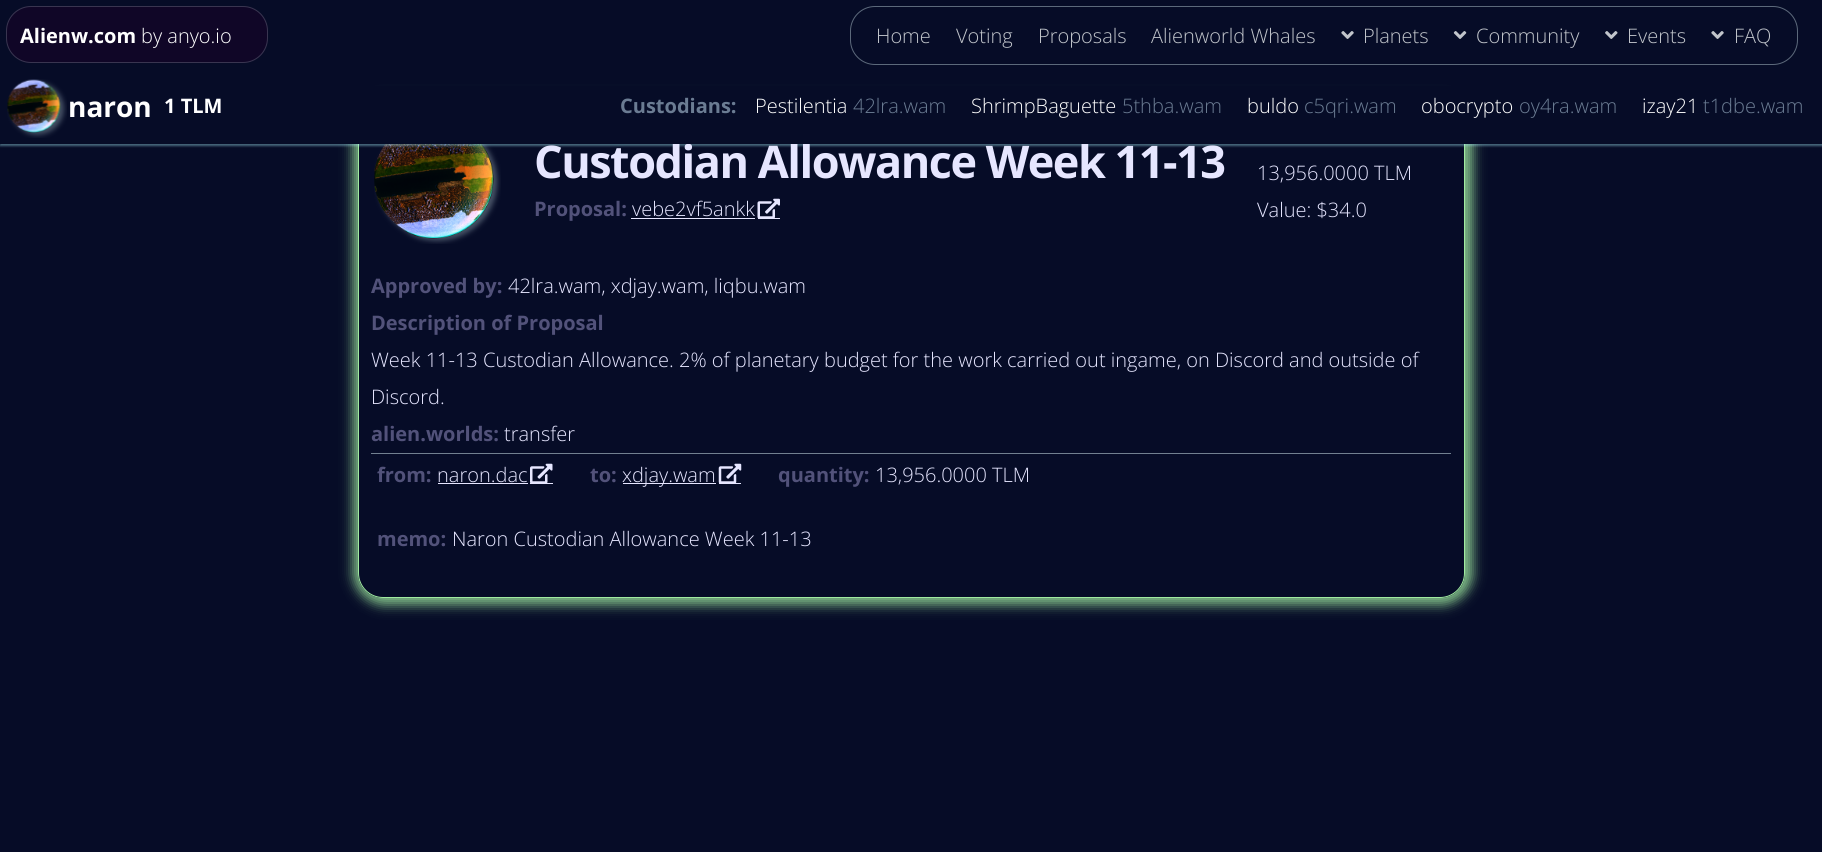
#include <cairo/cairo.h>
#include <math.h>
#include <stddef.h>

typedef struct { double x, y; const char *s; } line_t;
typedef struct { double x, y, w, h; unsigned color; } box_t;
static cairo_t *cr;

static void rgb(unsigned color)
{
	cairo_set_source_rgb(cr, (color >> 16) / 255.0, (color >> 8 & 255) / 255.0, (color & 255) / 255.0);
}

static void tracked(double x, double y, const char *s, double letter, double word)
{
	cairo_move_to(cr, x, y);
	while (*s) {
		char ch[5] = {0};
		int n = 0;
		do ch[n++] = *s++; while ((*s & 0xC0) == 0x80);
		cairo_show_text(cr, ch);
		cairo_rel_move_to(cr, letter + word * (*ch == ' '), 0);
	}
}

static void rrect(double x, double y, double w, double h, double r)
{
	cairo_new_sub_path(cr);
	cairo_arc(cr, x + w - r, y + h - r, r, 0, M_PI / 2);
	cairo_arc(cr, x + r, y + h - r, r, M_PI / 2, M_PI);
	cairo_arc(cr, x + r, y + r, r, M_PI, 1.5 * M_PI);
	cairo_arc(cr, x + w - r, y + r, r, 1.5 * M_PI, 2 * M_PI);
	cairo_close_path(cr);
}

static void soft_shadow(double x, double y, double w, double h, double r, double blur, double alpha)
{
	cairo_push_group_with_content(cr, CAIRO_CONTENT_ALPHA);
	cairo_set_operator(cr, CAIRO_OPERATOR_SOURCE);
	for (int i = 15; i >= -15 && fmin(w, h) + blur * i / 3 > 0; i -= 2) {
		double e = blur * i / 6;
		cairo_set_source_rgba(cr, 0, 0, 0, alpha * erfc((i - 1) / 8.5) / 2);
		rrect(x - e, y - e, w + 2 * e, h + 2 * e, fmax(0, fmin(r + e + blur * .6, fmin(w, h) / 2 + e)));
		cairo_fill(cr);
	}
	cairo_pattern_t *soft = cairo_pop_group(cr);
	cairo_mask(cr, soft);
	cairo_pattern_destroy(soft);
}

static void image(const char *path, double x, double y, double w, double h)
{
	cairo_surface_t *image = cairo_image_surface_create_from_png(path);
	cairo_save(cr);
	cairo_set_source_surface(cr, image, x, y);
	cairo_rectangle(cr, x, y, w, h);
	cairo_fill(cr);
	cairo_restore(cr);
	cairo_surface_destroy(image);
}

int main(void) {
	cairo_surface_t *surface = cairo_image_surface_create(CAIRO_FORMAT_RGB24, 1822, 852);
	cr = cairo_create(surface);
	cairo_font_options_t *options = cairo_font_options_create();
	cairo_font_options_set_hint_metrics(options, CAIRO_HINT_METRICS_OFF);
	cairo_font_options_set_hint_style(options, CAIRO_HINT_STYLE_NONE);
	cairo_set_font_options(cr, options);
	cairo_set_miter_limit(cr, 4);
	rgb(0x060c27);
	cairo_paint(cr);
	cairo_save(cr);
	cairo_set_fill_rule(cr, CAIRO_FILL_RULE_EVEN_ODD);
	cairo_new_path(cr);
	cairo_move_to(cr, 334, 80);
	cairo_line_to(cr, 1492, 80);
	cairo_line_to(cr, 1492, 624);
	cairo_line_to(cr, 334, 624);
	cairo_close_path(cr);
	cairo_move_to(cr, 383, 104);
	cairo_line_to(cr, 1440, 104);
	cairo_curve_to(cr, 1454, 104, 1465, 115, 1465, 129);
	cairo_line_to(cr, 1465, 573);
	cairo_curve_to(cr, 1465, 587, 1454, 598, 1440, 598);
	cairo_line_to(cr, 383, 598);
	cairo_curve_to(cr, 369, 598, 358, 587, 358, 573);
	cairo_line_to(cr, 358, 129);
	cairo_curve_to(cr, 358, 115, 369, 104, 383, 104);
	cairo_close_path(cr);
	cairo_clip(cr);
	rgb(0xa0eba0);
	soft_shadow(353, 99, 1120, 506, 31, 6, 0.8);
	cairo_restore(cr);
	rrect(358.5, 104.5, 1106, 493, 24.5);
	rgb(0xa0eba0);
	cairo_set_line_width(cr, 1);
	cairo_stroke(cr);
	image("img/5.png", 374, 144, 127, 100);
	cairo_save(cr);
	cairo_rectangle(cr, 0, 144, 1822, 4);
	cairo_clip(cr);
	rgb(0xa5ecf8);
	soft_shadow(0, 0, 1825, 146, 0, 1, 0.4);
	cairo_restore(cr);
	rgb(0x100627);
	rrect(6, 6, 262, 57, 25);
	cairo_fill(cr);
	rrect(6.5, 6.5, 261, 56, 24.5);
	cairo_set_source_rgba(cr, 0.867, 0.957, 0.973, 0.2);
	cairo_stroke(cr);
	rrect(850.5, 6.5, 947, 58, 24.5);
	rgb(0x5c697b);
	cairo_stroke(cr);
	image("img/1.png", 1341, 31, 13, 8);
	image("img/2.png", 1453, 31, 14, 8);
	image("img/3.png", 1605, 31, 13, 8);
	image("img/1.png", 1711, 31, 13, 8);
	rgb(0xe6e6ff);
	cairo_rectangle(cr, 631, 218, 124, 1);
	cairo_fill(cr);
	cairo_rectangle(cr, 758, 218, 22, 1);
	cairo_fill(cr);
	image("img/6.png", 757, 198, 23, 20);
	{
		static const box_t items[] = {
			{371, 453, 1080, 1, 0x728090},
			{438, 483, 90, 1, 0xe6e6ff},
			{530, 483, 23, 1, 0xe6e6ff},
		};
		for (size_t i = 0; i < sizeof items / sizeof *items; i++) {
			rgb(items[i].color);
			cairo_rectangle(cr, items[i].x, items[i].y, items[i].w, items[i].h);
			cairo_fill(cr);
		}
	}
	image("img/7.png", 530, 463, 23, 20);
	cairo_rectangle(cr, 623, 483, 93, 1);
	cairo_fill(cr);
	cairo_rectangle(cr, 719, 483, 22, 1);
	cairo_fill(cr);
	image("img/8.png", 718, 463, 24, 20);
	cairo_select_font_face(cr, "Open Sans", CAIRO_FONT_SLANT_NORMAL, CAIRO_FONT_WEIGHT_BOLD);
	cairo_set_font_size(cr, 20);
	rgb(0xffffff);
	cairo_move_to(cr, 20, 43);
	cairo_show_text(cr, "Alienw.com");
	cairo_select_font_face(cr, "Open Sans Light", CAIRO_FONT_SLANT_NORMAL, CAIRO_FONT_WEIGHT_NORMAL);
	cairo_move_to(cr, 141, 43);
	cairo_show_text(cr, "by anyo.io");
	rgb(0xc1c5cb);
	{
		static const line_t items[] = {
			{876, 43, "Home"},
			{956, 43, "Voting"},
			{1038, 43, "Proposals"},
			{1151, 43, "Alienworld Whales"},
			{1363, 43, "Planets"},
			{1476, 43, "Community"},
			{1627, 43, "Events"},
			{1734, 43, "FAQ"},
		};
		for (size_t i = 0; i < sizeof items / sizeof *items; i++) {
			cairo_move_to(cr, items[i].x, items[i].y);
			cairo_show_text(cr, items[i].s);
		}
	}
	cairo_select_font_face(cr, "Open Sans", CAIRO_FONT_SLANT_NORMAL, CAIRO_FONT_WEIGHT_BOLD);
	cairo_set_font_size(cr, 45);
	rgb(0xe6e6ff);
	tracked(534, 178, "Custodian Allowance Week 11-13", -1.5, 0);
	rgb(0x060c27);
	cairo_rectangle(cr, 0, 86, 1822, 58);
	cairo_fill(cr);
	image("img/4.png", 7, 79, 60, 59);
	cairo_select_font_face(cr, "Open Sans Light", CAIRO_FONT_SLANT_NORMAL, CAIRO_FONT_WEIGHT_NORMAL);
	cairo_set_font_size(cr, 20);
	rgb(0x6b7c93);
	cairo_move_to(cr, 1703, 113);
	cairo_show_text(cr, "t1dbe.wam");
	rgb(0xffffff);
	cairo_move_to(cr, 1642, 113);
	cairo_show_text(cr, "izay21");
	rgb(0x6b7c93);
	cairo_move_to(cr, 1519, 113);
	cairo_show_text(cr, "oy4ra.wam");
	rgb(0xffffff);
	cairo_move_to(cr, 1421, 113);
	cairo_show_text(cr, "obocrypto");
	rgb(0x6b7c93);
	cairo_move_to(cr, 1304, 113);
	cairo_show_text(cr, "c5qri.wam");
	rgb(0xffffff);
	cairo_move_to(cr, 1247, 113);
	cairo_show_text(cr, "buldo");
	rgb(0x6b7c93);
	cairo_move_to(cr, 1122, 113);
	cairo_show_text(cr, "5thba.wam");
	rgb(0xffffff);
	cairo_move_to(cr, 971, 113);
	cairo_show_text(cr, "ShrimpBaguette");
	rgb(0x6b7c93);
	cairo_move_to(cr, 853, 113);
	cairo_show_text(cr, "42lra.wam");
	rgb(0xffffff);
	cairo_move_to(cr, 755, 113);
	cairo_show_text(cr, "Pestilentia");
	cairo_select_font_face(cr, "Open Sans", CAIRO_FONT_SLANT_NORMAL, CAIRO_FONT_WEIGHT_BOLD);
	rgb(0x6b7c93);
	cairo_move_to(cr, 620, 113);
	cairo_show_text(cr, "Custodians:");
	rgb(0xffffff);
	cairo_move_to(cr, 164, 113);
	cairo_show_text(cr, "1 TLM");
	cairo_set_font_size(cr, 28);
	cairo_move_to(cr, 68, 117);
	cairo_show_text(cr, "naron");
	cairo_set_font_size(cr, 20);
	rgb(0x52527a);
	cairo_move_to(cr, 534, 216);
	cairo_show_text(cr, "Proposal:");
	cairo_select_font_face(cr, "Open Sans Light", CAIRO_FONT_SLANT_NORMAL, CAIRO_FONT_WEIGHT_NORMAL);
	rgb(0xe6e6ff);
	{
		static const line_t items[] = {
			{632, 216, "vebe2vf5ankk"},
			{1257, 180, "13,956.0000 TLM"},
			{1257, 217, "Value: $34.0"},
		};
		for (size_t i = 0; i < sizeof items / sizeof *items; i++) {
			cairo_move_to(cr, items[i].x, items[i].y);
			cairo_show_text(cr, items[i].s);
		}
	}
	cairo_select_font_face(cr, "Open Sans", CAIRO_FONT_SLANT_NORMAL, CAIRO_FONT_WEIGHT_BOLD);
	rgb(0x52527a);
	cairo_move_to(cr, 371, 293);
	cairo_show_text(cr, "Approved by:");
	cairo_select_font_face(cr, "Open Sans Light", CAIRO_FONT_SLANT_NORMAL, CAIRO_FONT_WEIGHT_NORMAL);
	rgb(0xe6e6ff);
	cairo_move_to(cr, 508, 293);
	cairo_show_text(cr, "42lra.wam, xdjay.wam, liqbu.wam");
	cairo_select_font_face(cr, "Open Sans", CAIRO_FONT_SLANT_NORMAL, CAIRO_FONT_WEIGHT_BOLD);
	rgb(0x52527a);
	cairo_move_to(cr, 371, 330);
	cairo_show_text(cr, "Description of Proposal");
	cairo_select_font_face(cr, "Open Sans Light", CAIRO_FONT_SLANT_NORMAL, CAIRO_FONT_WEIGHT_NORMAL);
	rgb(0xe6e6ff);
	cairo_move_to(cr, 371, 367);
	cairo_show_text(cr, "Week 11-13 Custodian Allowance. 2% of planetary budget for the work carried out ingame, on Discord and outside of");
	cairo_move_to(cr, 371, 404);
	cairo_show_text(cr, "Discord.");
	cairo_select_font_face(cr, "Open Sans", CAIRO_FONT_SLANT_NORMAL, CAIRO_FONT_WEIGHT_BOLD);
	rgb(0x52527a);
	cairo_move_to(cr, 371, 441);
	cairo_show_text(cr, "alien.worlds:");
	cairo_select_font_face(cr, "Open Sans Light", CAIRO_FONT_SLANT_NORMAL, CAIRO_FONT_WEIGHT_NORMAL);
	rgb(0xe6e6ff);
	cairo_move_to(cr, 504, 441);
	cairo_show_text(cr, "transfer");
	cairo_select_font_face(cr, "Open Sans", CAIRO_FONT_SLANT_NORMAL, CAIRO_FONT_WEIGHT_BOLD);
	rgb(0x52527a);
	cairo_move_to(cr, 377, 482);
	cairo_show_text(cr, "from:");
	cairo_select_font_face(cr, "Open Sans Light", CAIRO_FONT_SLANT_NORMAL, CAIRO_FONT_WEIGHT_NORMAL);
	rgb(0xe6e6ff);
	cairo_move_to(cr, 437, 482);
	cairo_show_text(cr, "naron.dac");
	cairo_select_font_face(cr, "Open Sans", CAIRO_FONT_SLANT_NORMAL, CAIRO_FONT_WEIGHT_BOLD);
	rgb(0x52527a);
	cairo_move_to(cr, 590, 482);
	cairo_show_text(cr, "to:");
	cairo_select_font_face(cr, "Open Sans Light", CAIRO_FONT_SLANT_NORMAL, CAIRO_FONT_WEIGHT_NORMAL);
	rgb(0xe6e6ff);
	cairo_move_to(cr, 622, 482);
	cairo_show_text(cr, "xdjay.wam");
	cairo_select_font_face(cr, "Open Sans", CAIRO_FONT_SLANT_NORMAL, CAIRO_FONT_WEIGHT_BOLD);
	rgb(0x52527a);
	cairo_move_to(cr, 778, 482);
	cairo_show_text(cr, "quantity:");
	cairo_select_font_face(cr, "Open Sans Light", CAIRO_FONT_SLANT_NORMAL, CAIRO_FONT_WEIGHT_NORMAL);
	rgb(0xe6e6ff);
	cairo_move_to(cr, 875, 482);
	cairo_show_text(cr, "13,956.0000 TLM");
	cairo_select_font_face(cr, "Open Sans", CAIRO_FONT_SLANT_NORMAL, CAIRO_FONT_WEIGHT_BOLD);
	rgb(0x52527a);
	cairo_move_to(cr, 377, 546);
	cairo_show_text(cr, "memo:");
	cairo_select_font_face(cr, "Open Sans Light", CAIRO_FONT_SLANT_NORMAL, CAIRO_FONT_WEIGHT_NORMAL);
	rgb(0xe6e6ff);
	cairo_move_to(cr, 452, 546);
	cairo_show_text(cr, "Naron Custodian Allowance Week 11-13");
	cairo_surface_write_to_png(surface, "page.png");
	cairo_font_options_destroy(options);
	cairo_destroy(cr);
	cairo_surface_destroy(surface);
	return 0;
}
